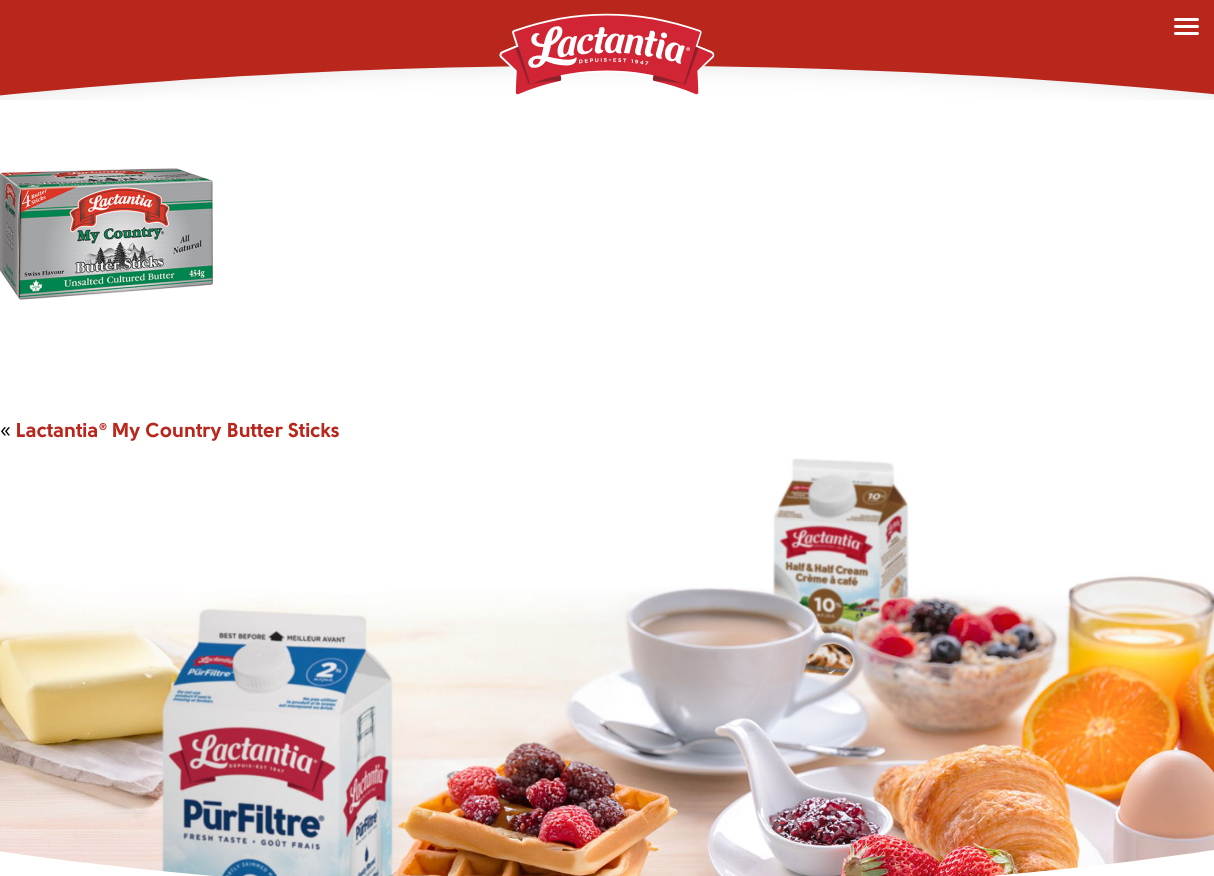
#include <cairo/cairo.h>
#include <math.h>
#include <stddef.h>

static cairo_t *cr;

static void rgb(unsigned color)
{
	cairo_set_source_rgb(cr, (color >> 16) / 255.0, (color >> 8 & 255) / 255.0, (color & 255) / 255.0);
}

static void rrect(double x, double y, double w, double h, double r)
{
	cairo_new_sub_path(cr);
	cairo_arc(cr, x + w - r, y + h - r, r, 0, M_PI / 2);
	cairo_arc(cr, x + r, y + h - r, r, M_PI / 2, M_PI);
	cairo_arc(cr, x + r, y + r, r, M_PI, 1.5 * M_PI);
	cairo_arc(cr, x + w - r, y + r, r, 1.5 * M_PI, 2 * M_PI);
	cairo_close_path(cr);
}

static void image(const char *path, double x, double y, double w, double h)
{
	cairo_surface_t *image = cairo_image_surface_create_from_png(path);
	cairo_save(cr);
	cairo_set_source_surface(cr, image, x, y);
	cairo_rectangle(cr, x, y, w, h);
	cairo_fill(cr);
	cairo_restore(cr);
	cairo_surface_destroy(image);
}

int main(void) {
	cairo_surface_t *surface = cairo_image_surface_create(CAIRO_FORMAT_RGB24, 1214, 876);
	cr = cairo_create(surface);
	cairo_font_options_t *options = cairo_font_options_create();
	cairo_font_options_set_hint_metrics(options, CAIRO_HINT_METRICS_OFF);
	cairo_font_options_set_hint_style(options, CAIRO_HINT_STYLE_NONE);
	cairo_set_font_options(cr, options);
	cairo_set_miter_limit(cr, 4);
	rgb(0xffffff);
	cairo_paint(cr);
	image("img/1.png", 0, 0, 1214, 100);
	image("img/2.png", 499, 13, 216, 82);
	rgb(0xffffff);
	rrect(1174, 18, 25, 3, 1.5);
	cairo_fill(cr);
	rrect(1174, 25, 25, 3, 1.5);
	cairo_fill(cr);
	rrect(1174, 32, 25, 3, 1.5);
	cairo_fill(cr);
	image("img/3.png", 0, 168, 213, 132);
	image("img/4.png", 0, 458, 1214, 418);
	image("img/5.png", 0, 850, 1214, 26);
	cairo_select_font_face(cr, "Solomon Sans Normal", CAIRO_FONT_SLANT_NORMAL, CAIRO_FONT_WEIGHT_NORMAL);
	cairo_set_font_size(cr, 20);
	rgb(0x000000);
	cairo_move_to(cr, 0, 437);
	cairo_show_text(cr, "«");
	cairo_select_font_face(cr, "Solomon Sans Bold", CAIRO_FONT_SLANT_NORMAL, CAIRO_FONT_WEIGHT_BOLD);
	rgb(0xb9261b);
	cairo_move_to(cr, 16, 437);
	cairo_show_text(cr, "Lactantia");
	cairo_set_font_size(cr, 10);
	cairo_move_to(cr, 99, 430);
	cairo_show_text(cr, "®");
	cairo_set_font_size(cr, 20);
	cairo_move_to(cr, 112, 437);
	cairo_show_text(cr, "My Country Butter Sticks");
	cairo_surface_write_to_png(surface, "page.png");
	cairo_font_options_destroy(options);
	cairo_destroy(cr);
	cairo_surface_destroy(surface);
	return 0;
}
